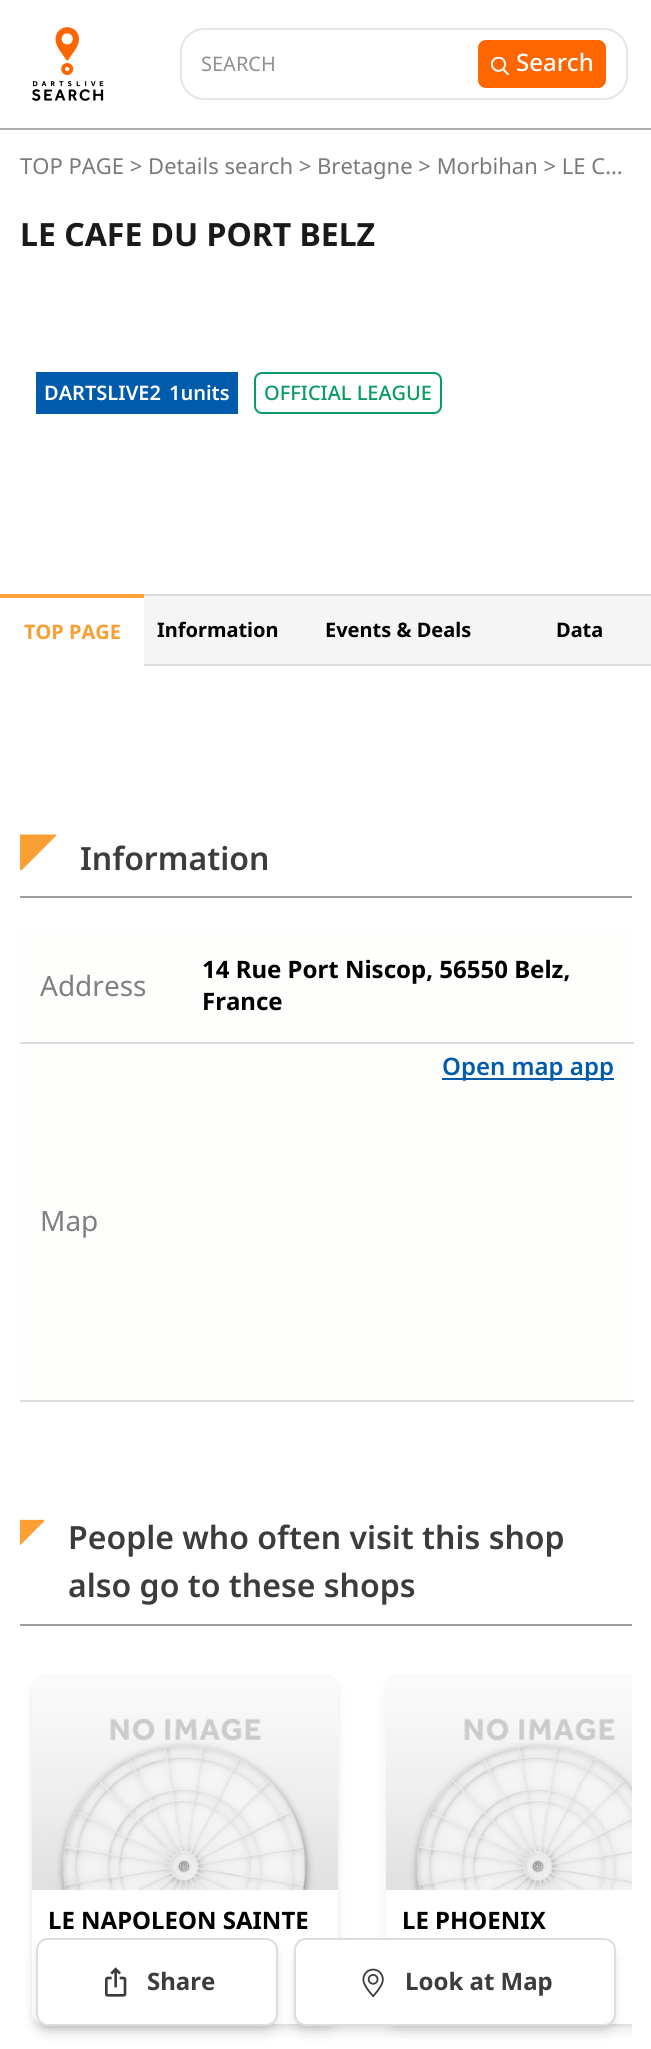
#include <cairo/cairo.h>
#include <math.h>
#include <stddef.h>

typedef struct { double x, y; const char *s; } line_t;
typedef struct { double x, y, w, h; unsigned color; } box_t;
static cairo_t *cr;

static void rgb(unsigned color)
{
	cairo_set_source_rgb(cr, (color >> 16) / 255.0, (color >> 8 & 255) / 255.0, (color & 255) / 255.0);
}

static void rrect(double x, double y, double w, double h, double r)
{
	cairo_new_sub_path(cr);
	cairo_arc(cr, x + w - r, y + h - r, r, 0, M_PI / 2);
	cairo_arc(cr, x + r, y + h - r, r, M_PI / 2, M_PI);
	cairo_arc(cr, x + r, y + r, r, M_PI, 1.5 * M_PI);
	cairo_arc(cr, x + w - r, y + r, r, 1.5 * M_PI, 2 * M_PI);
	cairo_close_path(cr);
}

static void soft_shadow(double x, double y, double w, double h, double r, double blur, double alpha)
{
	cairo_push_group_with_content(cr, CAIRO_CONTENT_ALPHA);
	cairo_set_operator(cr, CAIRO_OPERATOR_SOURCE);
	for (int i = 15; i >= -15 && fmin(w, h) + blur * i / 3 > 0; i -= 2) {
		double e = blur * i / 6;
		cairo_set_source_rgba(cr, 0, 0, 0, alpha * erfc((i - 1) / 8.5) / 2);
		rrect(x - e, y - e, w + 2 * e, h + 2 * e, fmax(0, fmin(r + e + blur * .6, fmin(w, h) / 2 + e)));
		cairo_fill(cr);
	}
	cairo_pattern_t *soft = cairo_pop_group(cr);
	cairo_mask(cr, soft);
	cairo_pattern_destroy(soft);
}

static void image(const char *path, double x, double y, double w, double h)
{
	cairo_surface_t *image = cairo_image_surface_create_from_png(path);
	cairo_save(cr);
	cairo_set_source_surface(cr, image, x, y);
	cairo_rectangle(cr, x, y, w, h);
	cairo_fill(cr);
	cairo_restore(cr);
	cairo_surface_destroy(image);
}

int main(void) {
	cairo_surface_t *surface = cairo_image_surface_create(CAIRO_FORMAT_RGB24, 651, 2049);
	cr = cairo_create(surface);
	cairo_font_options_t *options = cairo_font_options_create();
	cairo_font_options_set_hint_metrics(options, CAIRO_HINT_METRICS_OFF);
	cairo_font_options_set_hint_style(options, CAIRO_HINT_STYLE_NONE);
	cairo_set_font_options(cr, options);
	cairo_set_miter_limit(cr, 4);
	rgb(0xffffff);
	cairo_paint(cr);
	rgb(0xadafb3);
	cairo_rectangle(cr, 0, 128, 651, 2);
	cairo_fill(cr);
	image("img/1.png", 32, 27, 72, 74);
	rrect(181, 29, 446, 70, 23);
	rgb(0xe5e5e5);
	cairo_stroke(cr);
	rgb(0xff6600);
	rrect(478, 40, 128, 48, 8);
	cairo_fill(cr);
	image("img/2.png", 491, 57, 18, 18);
	rgb(0x005bac);
	cairo_rectangle(cr, 36, 372, 202, 42);
	cairo_fill(cr);
	rrect(255, 373, 186, 40, 7);
	rgb(0x089c64);
	cairo_stroke(cr);
	{
		static const box_t items[] = {
			{0, 594, 144, 4, 0xf99f33},
			{144, 596, 507, 68, 0xf5f5f5},
			{144, 594, 507, 2, 0xdddddd},
			{144, 664, 507, 2, 0xdddddd},
			{20, 896, 612, 2, 0x9c9c9c},
		};
		for (size_t i = 0; i < sizeof items / sizeof *items; i++) {
			rgb(items[i].color);
			cairo_rectangle(cr, items[i].x, items[i].y, items[i].w, items[i].h);
			cairo_fill(cr);
		}
	}
	rgb(0xf99f33);
	cairo_new_path(cr);
	cairo_move_to(cr, 21, 835.5);
	cairo_line_to(cr, 21, 869.5);
	cairo_line_to(cr, 55, 835.5);
	cairo_close_path(cr);
	cairo_fill(cr);
	cairo_save(cr);
	cairo_rectangle(cr, 20, 834, 36, 36);
	cairo_clip(cr);
	cairo_new_path(cr);
	cairo_move_to(cr, 21, 835.5);
	cairo_line_to(cr, 21, 869.5);
	cairo_line_to(cr, 55, 835.5);
	cairo_close_path(cr);
	cairo_set_line_width(cr, 1.9);
	cairo_stroke(cr);
	cairo_restore(cr);
	{
		static const box_t items[] = {
			{20, 930, 612, 470, 0xfefefc},
			{20, 1042, 614, 2, 0xdddddd},
			{20, 1400, 614, 2, 0xdddddd},
			{442, 1078, 172, 2, 0x005bac},
			{20, 1624, 612, 2, 0x9c9c9c},
		};
		for (size_t i = 0; i < sizeof items / sizeof *items; i++) {
			rgb(items[i].color);
			cairo_rectangle(cr, items[i].x, items[i].y, items[i].w, items[i].h);
			cairo_fill(cr);
		}
	}
	rgb(0xf99f33);
	cairo_new_path(cr);
	cairo_move_to(cr, 20, 1520.5);
	cairo_line_to(cr, 20, 1544.5);
	cairo_line_to(cr, 44, 1520.5);
	cairo_close_path(cr);
	cairo_fill(cr);
	cairo_save(cr);
	cairo_rectangle(cr, 20, 1514, 24, 36);
	cairo_clip(cr);
	cairo_new_path(cr);
	cairo_move_to(cr, 20, 1520.5);
	cairo_line_to(cr, 20, 1544.5);
	cairo_line_to(cr, 44, 1520.5);
	cairo_close_path(cr);
	cairo_set_line_width(cr, 1.3);
	cairo_stroke(cr);
	cairo_restore(cr);
	cairo_save(cr);
	cairo_set_fill_rule(cr, CAIRO_FILL_RULE_EVEN_ODD);
	cairo_new_path(cr);
	cairo_move_to(cr, 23, 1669);
	cairo_line_to(cr, 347, 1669);
	cairo_line_to(cr, 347, 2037);
	cairo_line_to(cr, 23, 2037);
	cairo_close_path(cr);
	cairo_move_to(cr, 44, 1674);
	cairo_line_to(cr, 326, 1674);
	cairo_curve_to(cr, 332.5, 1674, 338, 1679.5, 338, 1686);
	cairo_line_to(cr, 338, 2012);
	cairo_curve_to(cr, 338, 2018.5, 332.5, 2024, 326, 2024);
	cairo_line_to(cr, 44, 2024);
	cairo_curve_to(cr, 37.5, 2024, 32, 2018.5, 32, 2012);
	cairo_line_to(cr, 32, 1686);
	cairo_curve_to(cr, 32, 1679.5, 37.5, 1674, 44, 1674);
	cairo_close_path(cr);
	cairo_clip(cr);
	rgb(0x000000);
	soft_shadow(36, 1682, 298, 342, 8, 4, 0.1);
	cairo_restore(cr);
	cairo_save(cr);
	cairo_set_fill_rule(cr, CAIRO_FILL_RULE_EVEN_ODD);
	cairo_new_path(cr);
	cairo_move_to(cr, 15, 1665);
	cairo_line_to(cr, 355, 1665);
	cairo_line_to(cr, 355, 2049);
	cairo_line_to(cr, 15, 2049);
	cairo_close_path(cr);
	cairo_move_to(cr, 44, 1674);
	cairo_line_to(cr, 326, 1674);
	cairo_curve_to(cr, 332.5, 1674, 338, 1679.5, 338, 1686);
	cairo_line_to(cr, 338, 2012);
	cairo_curve_to(cr, 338, 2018.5, 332.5, 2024, 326, 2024);
	cairo_line_to(cr, 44, 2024);
	cairo_curve_to(cr, 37.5, 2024, 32, 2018.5, 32, 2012);
	cairo_line_to(cr, 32, 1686);
	cairo_curve_to(cr, 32, 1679.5, 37.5, 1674, 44, 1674);
	cairo_close_path(cr);
	cairo_clip(cr);
	rgb(0x000000);
	soft_shadow(34, 1684, 302, 346, 10, 6, 0.1);
	cairo_restore(cr);
	image("img/3.png", 32, 1674, 306, 216);
	cairo_save(cr);
	cairo_rectangle(cr, 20, 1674, 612, 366);
	cairo_clip(cr);
	cairo_rectangle(cr, 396, 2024, 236, 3);
	cairo_clip(cr);
	rgb(0x000000);
	soft_shadow(390, 1682, 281, 342, 8, 4, 0.1);
	cairo_restore(cr);
	cairo_save(cr);
	cairo_rectangle(cr, 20, 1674, 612, 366);
	cairo_clip(cr);
	cairo_set_fill_rule(cr, CAIRO_FILL_RULE_EVEN_ODD);
	cairo_new_path(cr);
	cairo_move_to(cr, 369, 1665);
	cairo_line_to(cr, 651, 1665);
	cairo_line_to(cr, 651, 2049);
	cairo_line_to(cr, 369, 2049);
	cairo_close_path(cr);
	cairo_move_to(cr, 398, 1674);
	cairo_line_to(cr, 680, 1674);
	cairo_curve_to(cr, 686.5, 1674, 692, 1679.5, 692, 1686);
	cairo_line_to(cr, 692, 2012);
	cairo_curve_to(cr, 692, 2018.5, 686.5, 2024, 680, 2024);
	cairo_line_to(cr, 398, 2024);
	cairo_curve_to(cr, 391.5, 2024, 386, 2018.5, 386, 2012);
	cairo_line_to(cr, 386, 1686);
	cairo_curve_to(cr, 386, 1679.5, 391.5, 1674, 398, 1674);
	cairo_close_path(cr);
	cairo_clip(cr);
	rgb(0x000000);
	soft_shadow(388, 1684, 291, 346, 10, 6, 0.1);
	cairo_restore(cr);
	image("img/4.png", 386, 1674, 246, 216);
	rgb(0x000000);
	soft_shadow(40, 1946, 234, 80, 8, 4, 0.1);
	soft_shadow(38, 1948, 238, 84, 10, 6, 0.1);
	rgb(0xffffff);
	rrect(37, 1939, 240, 86, 11);
	cairo_fill_preserve(cr);
	rgb(0xdddddd);
	cairo_stroke(cr);
	image("img/5.png", 105, 1967, 22, 30);
	rgb(0x000000);
	soft_shadow(298, 1946, 314, 80, 8, 4, 0.1);
	soft_shadow(296, 1948, 318, 84, 10, 6, 0.1);
	rgb(0xffffff);
	rrect(295, 1939, 320, 86, 11);
	cairo_fill_preserve(cr);
	rgb(0xdddddd);
	cairo_stroke(cr);
	image("img/6.png", 362, 1968, 22, 30);
	cairo_select_font_face(cr, "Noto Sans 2", CAIRO_FONT_SLANT_NORMAL, CAIRO_FONT_WEIGHT_NORMAL);
	cairo_set_font_size(cr, 20);
	rgb(0x918f92);
	cairo_move_to(cr, 201, 71);
	cairo_show_text(cr, "SEARCH");
	cairo_select_font_face(cr, "Noto Sans Medium", CAIRO_FONT_SLANT_NORMAL, CAIRO_FONT_WEIGHT_NORMAL);
	cairo_set_font_size(cr, 24);
	rgb(0xffffff);
	cairo_move_to(cr, 516, 71);
	cairo_show_text(cr, "Search");
	cairo_select_font_face(cr, "Noto Sans", CAIRO_FONT_SLANT_NORMAL, CAIRO_FONT_WEIGHT_NORMAL);
	cairo_set_font_size(cr, 22);
	rgb(0x7a7a7a);
	cairo_move_to(cr, 20, 174);
	cairo_show_text(cr, "TOP PAGE > Details search > Bretagne > Morbihan > LE C…");
	cairo_select_font_face(cr, "Noto Sans", CAIRO_FONT_SLANT_NORMAL, CAIRO_FONT_WEIGHT_BOLD);
	cairo_set_font_size(cr, 32);
	rgb(0x1a1a1a);
	cairo_move_to(cr, 20, 246);
	cairo_show_text(cr, "LE CAFE DU PORT BELZ");
	cairo_select_font_face(cr, "Noto Sans SemiBold", CAIRO_FONT_SLANT_NORMAL, CAIRO_FONT_WEIGHT_NORMAL);
	cairo_set_font_size(cr, 20);
	rgb(0xffffff);
	cairo_move_to(cr, 44, 400);
	cairo_show_text(cr, "DARTSLIVE2");
	cairo_move_to(cr, 169, 400);
	cairo_show_text(cr, "1units");
	cairo_select_font_face(cr, "Noto Sans 2 Medium", CAIRO_FONT_SLANT_NORMAL, CAIRO_FONT_WEIGHT_NORMAL);
	rgb(0x089c64);
	cairo_move_to(cr, 264, 400);
	cairo_show_text(cr, "OFFICIAL LEAGUE");
	cairo_select_font_face(cr, "Noto Sans", CAIRO_FONT_SLANT_NORMAL, CAIRO_FONT_WEIGHT_BOLD);
	rgb(0xf99f33);
	cairo_move_to(cr, 24, 639);
	cairo_show_text(cr, "TOP PAGE");
	rgb(0x000000);
	{
		static const line_t items[] = {
			{157, 637, "Information"},
			{325, 637, "Events & Deals"},
			{556, 637, "Data"},
		};
		for (size_t i = 0; i < sizeof items / sizeof *items; i++) {
			cairo_move_to(cr, items[i].x, items[i].y);
			cairo_show_text(cr, items[i].s);
		}
	}
	cairo_select_font_face(cr, "Noto Sans SemiBold", CAIRO_FONT_SLANT_NORMAL, CAIRO_FONT_WEIGHT_NORMAL);
	cairo_set_font_size(cr, 32);
	rgb(0x3c3c3c);
	cairo_move_to(cr, 80, 870);
	cairo_show_text(cr, "Information");
	cairo_select_font_face(cr, "Noto Sans", CAIRO_FONT_SLANT_NORMAL, CAIRO_FONT_WEIGHT_NORMAL);
	cairo_set_font_size(cr, 28);
	rgb(0x808080);
	cairo_move_to(cr, 40, 996);
	cairo_show_text(cr, "Address");
	cairo_select_font_face(cr, "Noto Sans", CAIRO_FONT_SLANT_NORMAL, CAIRO_FONT_WEIGHT_BOLD);
	cairo_set_font_size(cr, 24);
	rgb(0x000000);
	cairo_move_to(cr, 202, 978);
	cairo_show_text(cr, "14 Rue Port Niscop, 56550 Belz,");
	cairo_move_to(cr, 202, 1010);
	cairo_show_text(cr, "France");
	cairo_select_font_face(cr, "Noto Sans SemiBold", CAIRO_FONT_SLANT_NORMAL, CAIRO_FONT_WEIGHT_NORMAL);
	rgb(0x005bac);
	cairo_move_to(cr, 442, 1075);
	cairo_show_text(cr, "Open map app");
	cairo_select_font_face(cr, "Noto Sans", CAIRO_FONT_SLANT_NORMAL, CAIRO_FONT_WEIGHT_NORMAL);
	cairo_set_font_size(cr, 28);
	rgb(0x808080);
	cairo_move_to(cr, 40, 1231);
	cairo_show_text(cr, "Map");
	cairo_select_font_face(cr, "Noto Sans SemiBold", CAIRO_FONT_SLANT_NORMAL, CAIRO_FONT_WEIGHT_NORMAL);
	cairo_set_font_size(cr, 32);
	rgb(0x3c3c3c);
	cairo_move_to(cr, 68, 1549);
	cairo_show_text(cr, "People who often visit this shop");
	cairo_move_to(cr, 68, 1597);
	cairo_show_text(cr, "also go to these shops");
	cairo_select_font_face(cr, "Noto Sans", CAIRO_FONT_SLANT_NORMAL, CAIRO_FONT_WEIGHT_BOLD);
	cairo_set_font_size(cr, 24);
	rgb(0x000000);
	cairo_move_to(cr, 48, 1929);
	cairo_show_text(cr, "LE NAPOLEON SAINTE");
	cairo_move_to(cr, 402, 1929);
	cairo_show_text(cr, "LE PHOENIX");
	rgb(0x3c3c3c);
	cairo_move_to(cr, 147, 1990);
	cairo_show_text(cr, "Share");
	cairo_move_to(cr, 405, 1990);
	cairo_show_text(cr, "Look at Map");
	cairo_surface_write_to_png(surface, "page.png");
	cairo_font_options_destroy(options);
	cairo_destroy(cr);
	cairo_surface_destroy(surface);
	return 0;
}
